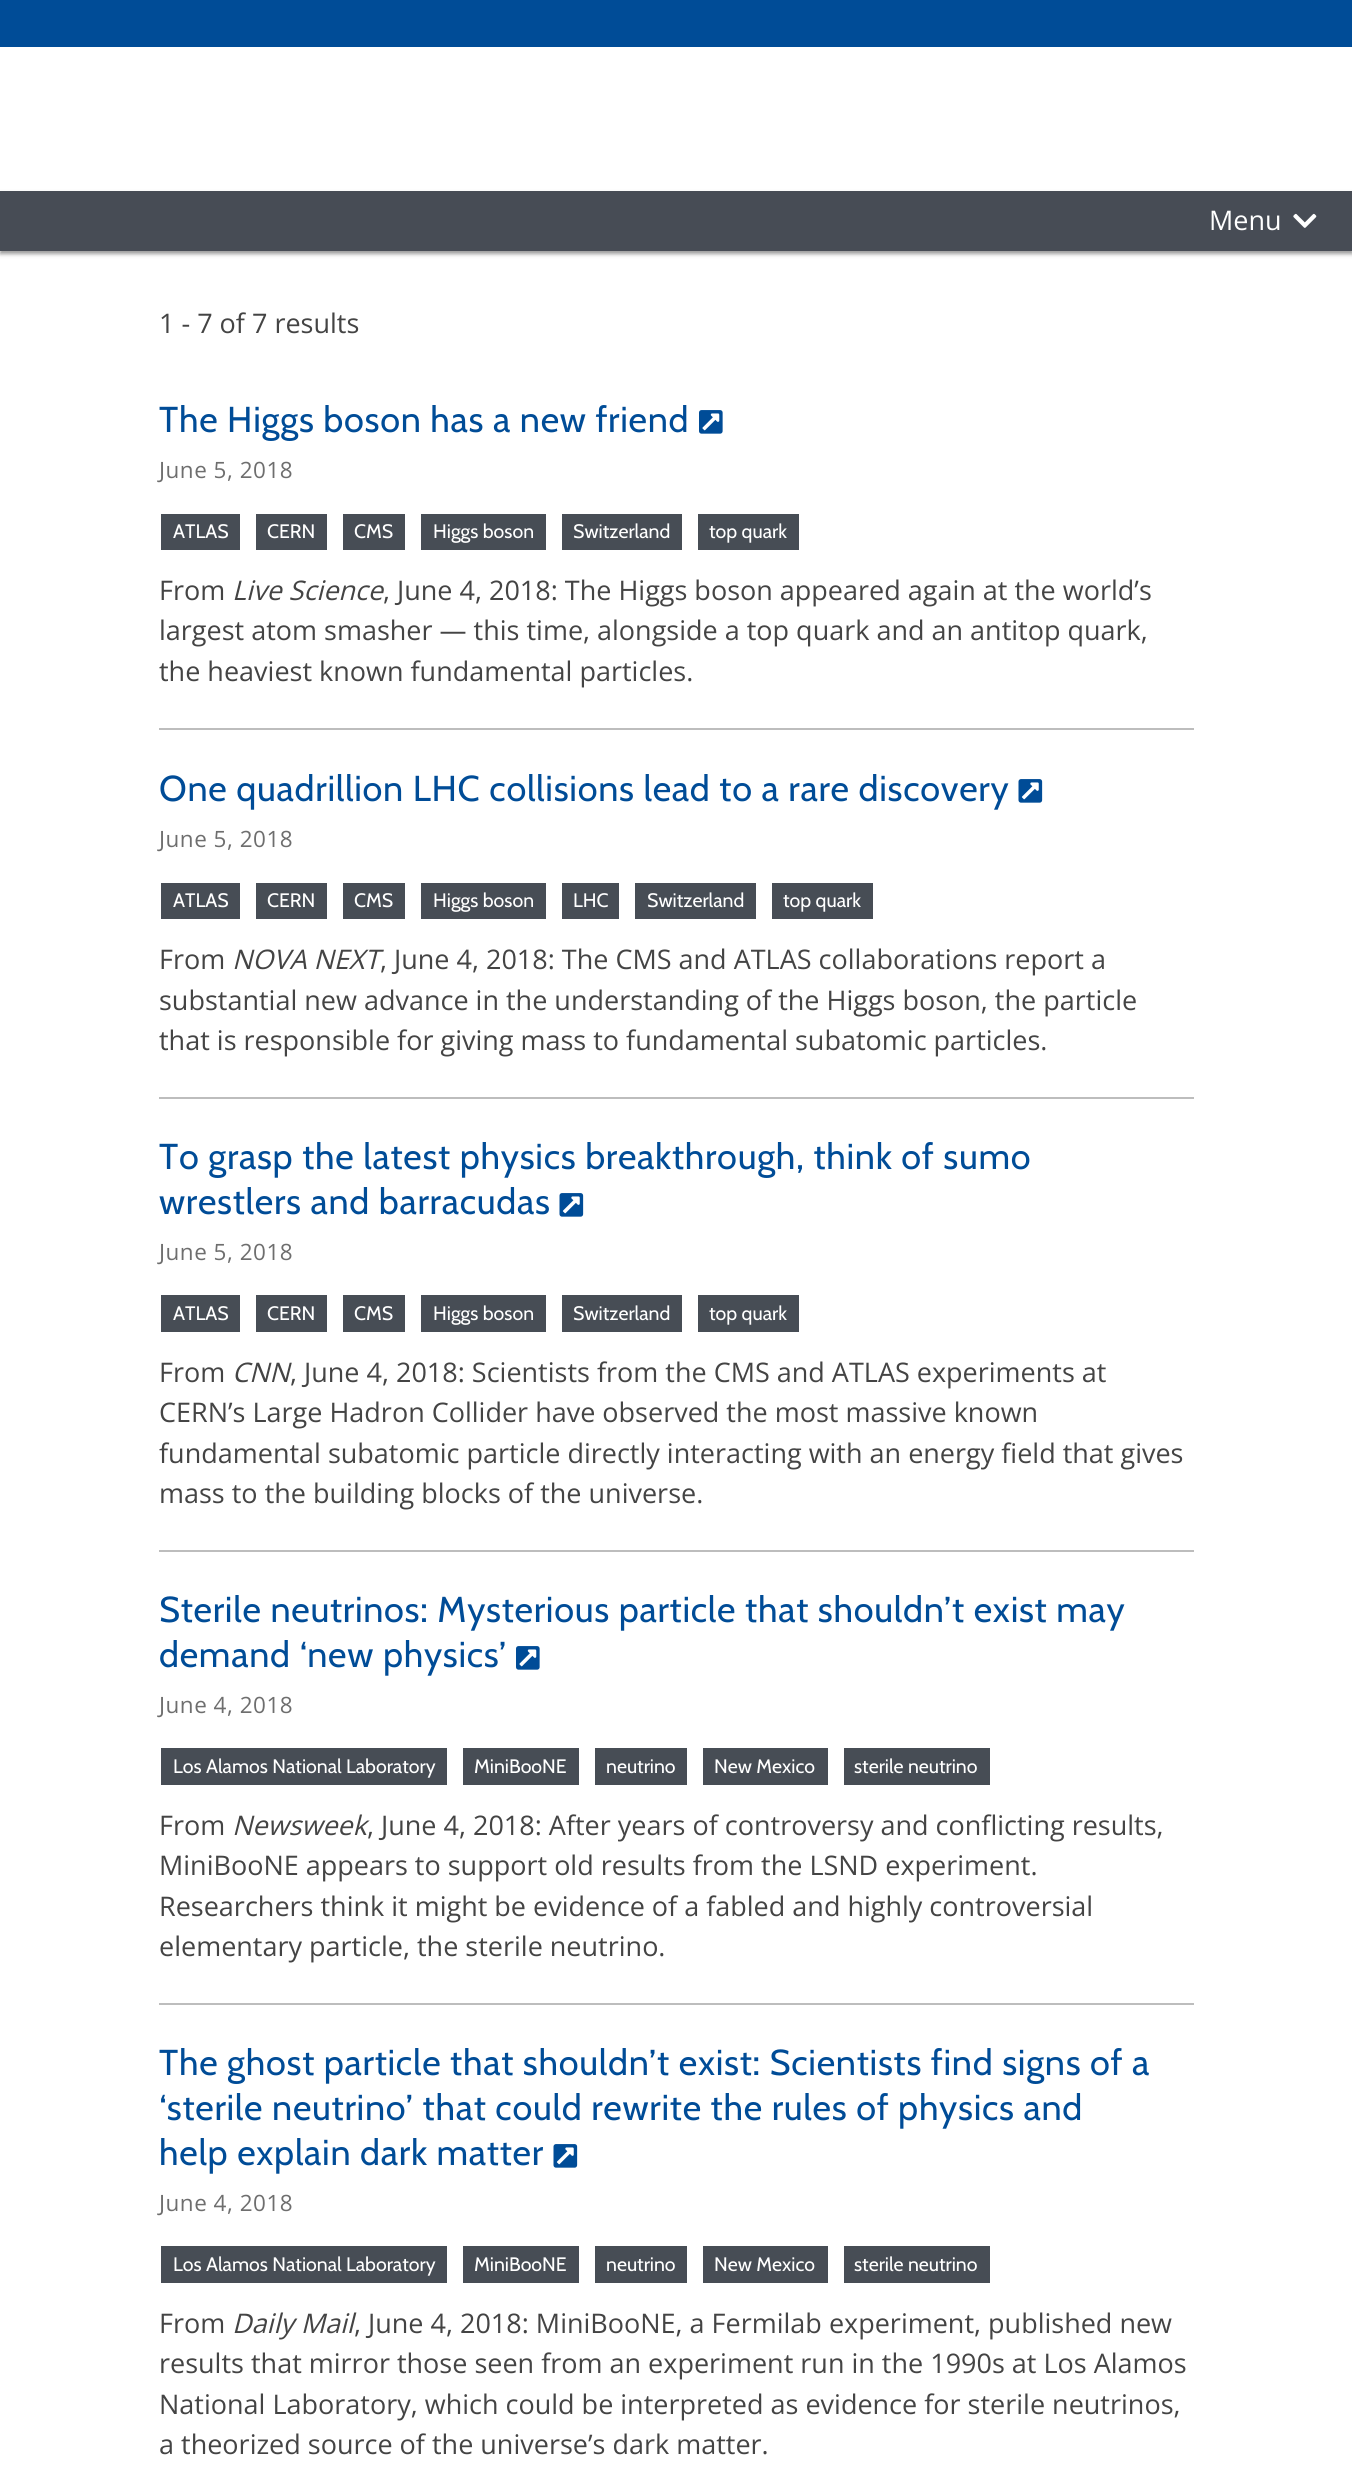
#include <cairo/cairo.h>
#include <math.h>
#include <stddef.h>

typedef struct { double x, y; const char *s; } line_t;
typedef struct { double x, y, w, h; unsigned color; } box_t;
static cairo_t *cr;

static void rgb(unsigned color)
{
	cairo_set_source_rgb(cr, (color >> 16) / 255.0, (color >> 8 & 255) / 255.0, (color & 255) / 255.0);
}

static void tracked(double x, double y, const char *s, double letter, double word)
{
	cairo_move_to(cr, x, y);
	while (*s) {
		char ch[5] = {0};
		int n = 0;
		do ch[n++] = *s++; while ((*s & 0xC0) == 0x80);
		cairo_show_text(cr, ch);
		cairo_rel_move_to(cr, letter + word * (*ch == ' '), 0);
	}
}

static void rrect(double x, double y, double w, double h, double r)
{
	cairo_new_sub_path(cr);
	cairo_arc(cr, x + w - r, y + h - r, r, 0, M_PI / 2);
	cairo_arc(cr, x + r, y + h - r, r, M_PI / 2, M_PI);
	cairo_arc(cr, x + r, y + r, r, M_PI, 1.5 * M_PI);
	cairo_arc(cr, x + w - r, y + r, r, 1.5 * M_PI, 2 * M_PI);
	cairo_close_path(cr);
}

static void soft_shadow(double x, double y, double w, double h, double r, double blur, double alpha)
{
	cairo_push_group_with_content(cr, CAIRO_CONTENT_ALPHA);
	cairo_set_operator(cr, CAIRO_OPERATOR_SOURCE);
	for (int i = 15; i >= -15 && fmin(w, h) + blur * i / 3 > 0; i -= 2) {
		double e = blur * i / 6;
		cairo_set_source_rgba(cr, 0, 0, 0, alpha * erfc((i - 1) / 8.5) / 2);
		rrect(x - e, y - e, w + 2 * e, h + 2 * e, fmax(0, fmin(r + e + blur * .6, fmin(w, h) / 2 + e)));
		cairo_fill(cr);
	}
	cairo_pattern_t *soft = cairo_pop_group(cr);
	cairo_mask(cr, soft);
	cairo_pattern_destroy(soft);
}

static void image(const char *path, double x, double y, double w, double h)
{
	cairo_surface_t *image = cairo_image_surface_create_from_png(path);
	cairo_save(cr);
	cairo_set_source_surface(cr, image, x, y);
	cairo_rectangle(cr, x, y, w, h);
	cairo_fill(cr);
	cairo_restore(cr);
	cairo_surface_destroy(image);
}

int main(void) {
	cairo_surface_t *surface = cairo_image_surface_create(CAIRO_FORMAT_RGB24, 1352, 2491);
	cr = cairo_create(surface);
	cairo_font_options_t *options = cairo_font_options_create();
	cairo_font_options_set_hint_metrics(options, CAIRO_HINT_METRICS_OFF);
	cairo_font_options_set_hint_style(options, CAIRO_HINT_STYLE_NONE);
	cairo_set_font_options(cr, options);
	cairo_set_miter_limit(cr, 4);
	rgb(0xffffff);
	cairo_paint(cr);
	rgb(0x004c97);
	cairo_rectangle(cr, 0, 0, 1352, 47);
	cairo_fill(cr);
	rgb(0x000000);
	soft_shadow(0, 194, 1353, 60, 0, 2, 0.4);
	rgb(0x474c55);
	cairo_rectangle(cr, 0, 191, 1352, 60);
	cairo_fill(cr);
	image("img/1.png", 1293, 213, 24, 15);
	rgb(0xbdbdbd);
	cairo_rectangle(cr, 159, 728, 1035, 2);
	cairo_fill(cr);
	image("img/2.png", 699, 410, 24, 24);
	{
		static const box_t items[] = {
			{161, 514, 79, 36, 0x474d55},
			{256, 514, 71, 36, 0x474d55},
			{343, 514, 62, 36, 0x474d55},
			{421, 514, 125, 36, 0x474d55},
			{562, 514, 120, 36, 0x474d55},
			{698, 514, 101, 36, 0x474d55},
			{159, 1097, 1035, 2, 0xbdbdbd},
		};
		for (size_t i = 0; i < sizeof items / sizeof *items; i++) {
			rgb(items[i].color);
			cairo_rectangle(cr, items[i].x, items[i].y, items[i].w, items[i].h);
			cairo_fill(cr);
		}
	}
	image("img/3.png", 1018, 779, 25, 24);
	{
		static const box_t items[] = {
			{161, 883, 79, 36, 0x474d55},
			{256, 883, 71, 36, 0x474d55},
			{343, 883, 62, 36, 0x474d55},
			{421, 883, 125, 36, 0x474d55},
			{562, 883, 57, 36, 0x474d55},
			{635, 883, 121, 36, 0x474d55},
			{772, 883, 101, 36, 0x474d55},
			{159, 1550, 1035, 2, 0xbdbdbd},
		};
		for (size_t i = 0; i < sizeof items / sizeof *items; i++) {
			rgb(items[i].color);
			cairo_rectangle(cr, items[i].x, items[i].y, items[i].w, items[i].h);
			cairo_fill(cr);
		}
	}
	image("img/3.png", 559, 1193, 25, 24);
	{
		static const box_t items[] = {
			{161, 1295, 79, 37, 0x474d55},
			{256, 1295, 71, 37, 0x474d55},
			{343, 1295, 62, 37, 0x474d55},
			{421, 1295, 125, 37, 0x474d55},
			{562, 1295, 120, 37, 0x474d55},
			{698, 1295, 101, 37, 0x474d55},
			{159, 2003, 1035, 2, 0xbdbdbd},
		};
		for (size_t i = 0; i < sizeof items / sizeof *items; i++) {
			rgb(items[i].color);
			cairo_rectangle(cr, items[i].x, items[i].y, items[i].w, items[i].h);
			cairo_fill(cr);
		}
	}
	image("img/2.png", 516, 1646, 24, 24);
	{
		static const box_t items[] = {
			{161, 1748, 286, 37, 0x474d55},
			{463, 1748, 116, 37, 0x474d55},
			{595, 1748, 92, 37, 0x474d55},
			{703, 1748, 125, 37, 0x474d55},
			{844, 1748, 146, 37, 0x474d55},
		};
		for (size_t i = 0; i < sizeof items / sizeof *items; i++) {
			rgb(items[i].color);
			cairo_rectangle(cr, items[i].x, items[i].y, items[i].w, items[i].h);
			cairo_fill(cr);
		}
	}
	image("img/3.png", 553, 2144, 25, 24);
	{
		static const box_t items[] = {
			{161, 2246, 286, 37, 0x474d55},
			{463, 2246, 116, 37, 0x474d55},
			{595, 2246, 92, 37, 0x474d55},
			{703, 2246, 125, 37, 0x474d55},
			{844, 2246, 146, 37, 0x474d55},
		};
		for (size_t i = 0; i < sizeof items / sizeof *items; i++) {
			rgb(items[i].color);
			cairo_rectangle(cr, items[i].x, items[i].y, items[i].w, items[i].h);
			cairo_fill(cr);
		}
	}
	cairo_select_font_face(cr, "Open Sans", CAIRO_FONT_SLANT_NORMAL, CAIRO_FONT_WEIGHT_NORMAL);
	cairo_set_font_size(cr, 27);
	rgb(0xffffff);
	cairo_move_to(cr, 1209, 230);
	cairo_show_text(cr, "Menu");
	rgb(0x444444);
	cairo_move_to(cr, 159, 333);
	cairo_show_text(cr, "1 - 7 of 7 results");
	cairo_select_font_face(cr, "Cabin", CAIRO_FONT_SLANT_NORMAL, CAIRO_FONT_WEIGHT_NORMAL);
	cairo_set_font_size(cr, 36);
	rgb(0x004c97);
	tracked(159, 432, "The Higgs boson has a new friend", 0.72, 0);
	cairo_select_font_face(cr, "Open Sans", CAIRO_FONT_SLANT_NORMAL, CAIRO_FONT_WEIGHT_NORMAL);
	cairo_set_font_size(cr, 22.5);
	rgb(0x6e6e6e);
	tracked(159, 478, "June 5, 2018", 0.5, 0);
	cairo_select_font_face(cr, "Cabin", CAIRO_FONT_SLANT_NORMAL, CAIRO_FONT_WEIGHT_NORMAL);
	cairo_set_font_size(cr, 19.5);
	rgb(0xffffff);
	{
		static const line_t items[] = {
			{173, 538, "ATLAS"},
			{267, 538, "CERN"},
			{354, 538, "CMS"},
			{433, 538, "Higgs boson"},
			{573, 538, "Switzerland"},
			{709, 538, "top quark"},
		};
		for (size_t i = 0; i < sizeof items / sizeof *items; i++) {
			cairo_move_to(cr, items[i].x, items[i].y);
			cairo_show_text(cr, items[i].s);
		}
	}
	cairo_select_font_face(cr, "Open Sans", CAIRO_FONT_SLANT_NORMAL, CAIRO_FONT_WEIGHT_NORMAL);
	cairo_set_font_size(cr, 27);
	rgb(0x444444);
	cairo_move_to(cr, 159, 600);
	cairo_show_text(cr, "From");
	cairo_select_font_face(cr, "Open Sans", CAIRO_FONT_SLANT_ITALIC, CAIRO_FONT_WEIGHT_NORMAL);
	cairo_move_to(cr, 232, 600);
	cairo_show_text(cr, "Live Science");
	cairo_select_font_face(cr, "Open Sans", CAIRO_FONT_SLANT_NORMAL, CAIRO_FONT_WEIGHT_NORMAL);
	{
		static const line_t items[] = {
			{383, 600, ", June 4, 2018: The Higgs boson appeared again at the world’s"},
			{159, 640, "largest atom smasher — this time, alongside a top quark and an antitop quark,"},
			{159, 681, "the heaviest known fundamental particles."},
		};
		for (size_t i = 0; i < sizeof items / sizeof *items; i++) {
			cairo_move_to(cr, items[i].x, items[i].y);
			cairo_show_text(cr, items[i].s);
		}
	}
	cairo_select_font_face(cr, "Cabin", CAIRO_FONT_SLANT_NORMAL, CAIRO_FONT_WEIGHT_NORMAL);
	cairo_set_font_size(cr, 36);
	rgb(0x004c97);
	tracked(159, 801, "One quadrillion LHC collisions lead to a rare discovery", 0.72, 0);
	cairo_select_font_face(cr, "Open Sans", CAIRO_FONT_SLANT_NORMAL, CAIRO_FONT_WEIGHT_NORMAL);
	cairo_set_font_size(cr, 22.5);
	rgb(0x6e6e6e);
	tracked(159, 847, "June 5, 2018", 0.5, 0);
	cairo_select_font_face(cr, "Cabin", CAIRO_FONT_SLANT_NORMAL, CAIRO_FONT_WEIGHT_NORMAL);
	cairo_set_font_size(cr, 19.5);
	rgb(0xffffff);
	{
		static const line_t items[] = {
			{173, 907, "ATLAS"},
			{267, 907, "CERN"},
			{354, 907, "CMS"},
			{433, 907, "Higgs boson"},
			{573, 907, "LHC"},
			{647, 907, "Switzerland"},
			{783, 907, "top quark"},
		};
		for (size_t i = 0; i < sizeof items / sizeof *items; i++) {
			cairo_move_to(cr, items[i].x, items[i].y);
			cairo_show_text(cr, items[i].s);
		}
	}
	cairo_select_font_face(cr, "Open Sans", CAIRO_FONT_SLANT_NORMAL, CAIRO_FONT_WEIGHT_NORMAL);
	cairo_set_font_size(cr, 27);
	rgb(0x444444);
	cairo_move_to(cr, 159, 969);
	cairo_show_text(cr, "From");
	cairo_select_font_face(cr, "Open Sans", CAIRO_FONT_SLANT_ITALIC, CAIRO_FONT_WEIGHT_NORMAL);
	cairo_move_to(cr, 232, 969);
	cairo_show_text(cr, "NOVA NEXT");
	cairo_select_font_face(cr, "Open Sans", CAIRO_FONT_SLANT_NORMAL, CAIRO_FONT_WEIGHT_NORMAL);
	{
		static const line_t items[] = {
			{380, 969, ", June 4, 2018: The CMS and ATLAS collaborations report a"},
			{159, 1010, "substantial new advance in the understanding of the Higgs boson, the particle"},
			{159, 1050, "that is responsible for giving mass to fundamental subatomic particles."},
		};
		for (size_t i = 0; i < sizeof items / sizeof *items; i++) {
			cairo_move_to(cr, items[i].x, items[i].y);
			cairo_show_text(cr, items[i].s);
		}
	}
	cairo_select_font_face(cr, "Cabin", CAIRO_FONT_SLANT_NORMAL, CAIRO_FONT_WEIGHT_NORMAL);
	cairo_set_font_size(cr, 36);
	rgb(0x004c97);
	tracked(159, 1169, "To grasp the latest physics breakthrough, think of sumo", 0.72, 0);
	tracked(159, 1214, "wrestlers and barracudas", 0.72, 0);
	cairo_select_font_face(cr, "Open Sans", CAIRO_FONT_SLANT_NORMAL, CAIRO_FONT_WEIGHT_NORMAL);
	cairo_set_font_size(cr, 22.5);
	rgb(0x6e6e6e);
	tracked(159, 1260, "June 5, 2018", 0.5, 0);
	cairo_select_font_face(cr, "Cabin", CAIRO_FONT_SLANT_NORMAL, CAIRO_FONT_WEIGHT_NORMAL);
	cairo_set_font_size(cr, 19.5);
	rgb(0xffffff);
	{
		static const line_t items[] = {
			{173, 1320, "ATLAS"},
			{267, 1320, "CERN"},
			{354, 1320, "CMS"},
			{433, 1320, "Higgs boson"},
			{573, 1320, "Switzerland"},
			{709, 1320, "top quark"},
		};
		for (size_t i = 0; i < sizeof items / sizeof *items; i++) {
			cairo_move_to(cr, items[i].x, items[i].y);
			cairo_show_text(cr, items[i].s);
		}
	}
	cairo_select_font_face(cr, "Open Sans", CAIRO_FONT_SLANT_NORMAL, CAIRO_FONT_WEIGHT_NORMAL);
	cairo_set_font_size(cr, 27);
	rgb(0x444444);
	cairo_move_to(cr, 159, 1382);
	cairo_show_text(cr, "From");
	cairo_select_font_face(cr, "Open Sans", CAIRO_FONT_SLANT_ITALIC, CAIRO_FONT_WEIGHT_NORMAL);
	cairo_move_to(cr, 232, 1382);
	cairo_show_text(cr, "CNN");
	cairo_select_font_face(cr, "Open Sans", CAIRO_FONT_SLANT_NORMAL, CAIRO_FONT_WEIGHT_NORMAL);
	{
		static const line_t items[] = {
			{290, 1382, ", June 4, 2018: Scientists from the CMS and ATLAS experiments at"},
			{159, 1422, "CERN’s Large Hadron Collider have observed the most massive known"},
			{159, 1463, "fundamental subatomic particle directly interacting with an energy field that gives"},
			{159, 1503, "mass to the building blocks of the universe."},
		};
		for (size_t i = 0; i < sizeof items / sizeof *items; i++) {
			cairo_move_to(cr, items[i].x, items[i].y);
			cairo_show_text(cr, items[i].s);
		}
	}
	cairo_select_font_face(cr, "Cabin", CAIRO_FONT_SLANT_NORMAL, CAIRO_FONT_WEIGHT_NORMAL);
	cairo_set_font_size(cr, 36);
	rgb(0x004c97);
	tracked(159, 1622, "Sterile neutrinos: Mysterious particle that shouldn’t exist may", 0.72, 0);
	tracked(159, 1667, "demand ‘new physics’", 0.72, 0);
	cairo_select_font_face(cr, "Open Sans", CAIRO_FONT_SLANT_NORMAL, CAIRO_FONT_WEIGHT_NORMAL);
	cairo_set_font_size(cr, 22.5);
	rgb(0x6e6e6e);
	tracked(159, 1713, "June 4, 2018", 0.5, 0);
	cairo_select_font_face(cr, "Cabin", CAIRO_FONT_SLANT_NORMAL, CAIRO_FONT_WEIGHT_NORMAL);
	cairo_set_font_size(cr, 19.5);
	rgb(0xffffff);
	{
		static const line_t items[] = {
			{173, 1773, "Los Alamos National Laboratory"},
			{474, 1773, "MiniBooNE"},
			{606, 1773, "neutrino"},
			{714, 1773, "New Mexico"},
			{854, 1773, "sterile neutrino"},
		};
		for (size_t i = 0; i < sizeof items / sizeof *items; i++) {
			cairo_move_to(cr, items[i].x, items[i].y);
			cairo_show_text(cr, items[i].s);
		}
	}
	cairo_select_font_face(cr, "Open Sans", CAIRO_FONT_SLANT_NORMAL, CAIRO_FONT_WEIGHT_NORMAL);
	cairo_set_font_size(cr, 27);
	rgb(0x444444);
	cairo_move_to(cr, 159, 1835);
	cairo_show_text(cr, "From");
	cairo_select_font_face(cr, "Open Sans", CAIRO_FONT_SLANT_ITALIC, CAIRO_FONT_WEIGHT_NORMAL);
	cairo_move_to(cr, 232, 1835);
	cairo_show_text(cr, "Newsweek");
	cairo_select_font_face(cr, "Open Sans", CAIRO_FONT_SLANT_NORMAL, CAIRO_FONT_WEIGHT_NORMAL);
	{
		static const line_t items[] = {
			{367, 1835, ", June 4, 2018: After years of controversy and conflicting results,"},
			{159, 1875, "MiniBooNE appears to support old results from the LSND experiment."},
			{159, 1916, "Researchers think it might be evidence of a fabled and highly controversial"},
			{159, 1956, "elementary particle, the sterile neutrino."},
		};
		for (size_t i = 0; i < sizeof items / sizeof *items; i++) {
			cairo_move_to(cr, items[i].x, items[i].y);
			cairo_show_text(cr, items[i].s);
		}
	}
	cairo_select_font_face(cr, "Cabin", CAIRO_FONT_SLANT_NORMAL, CAIRO_FONT_WEIGHT_NORMAL);
	cairo_set_font_size(cr, 36);
	rgb(0x004c97);
	{
		static const line_t items[] = {
			{159, 2075, "The ghost particle that shouldn’t exist: Scientists find signs of a"},
			{159, 2120, "‘sterile neutrino’ that could rewrite the rules of physics and"},
			{159, 2165, "help explain dark matter"},
		};
		for (size_t i = 0; i < sizeof items / sizeof *items; i++) {
			tracked(items[i].x, items[i].y, items[i].s, 0.72, 0);
		}
	}
	cairo_select_font_face(cr, "Open Sans", CAIRO_FONT_SLANT_NORMAL, CAIRO_FONT_WEIGHT_NORMAL);
	cairo_set_font_size(cr, 22.5);
	rgb(0x6e6e6e);
	tracked(159, 2211, "June 4, 2018", 0.5, 0);
	cairo_select_font_face(cr, "Cabin", CAIRO_FONT_SLANT_NORMAL, CAIRO_FONT_WEIGHT_NORMAL);
	cairo_set_font_size(cr, 19.5);
	rgb(0xffffff);
	{
		static const line_t items[] = {
			{173, 2271, "Los Alamos National Laboratory"},
			{474, 2271, "MiniBooNE"},
			{606, 2271, "neutrino"},
			{714, 2271, "New Mexico"},
			{854, 2271, "sterile neutrino"},
		};
		for (size_t i = 0; i < sizeof items / sizeof *items; i++) {
			cairo_move_to(cr, items[i].x, items[i].y);
			cairo_show_text(cr, items[i].s);
		}
	}
	cairo_select_font_face(cr, "Open Sans", CAIRO_FONT_SLANT_NORMAL, CAIRO_FONT_WEIGHT_NORMAL);
	cairo_set_font_size(cr, 27);
	rgb(0x444444);
	cairo_move_to(cr, 159, 2333);
	cairo_show_text(cr, "From");
	cairo_select_font_face(cr, "Open Sans", CAIRO_FONT_SLANT_ITALIC, CAIRO_FONT_WEIGHT_NORMAL);
	cairo_move_to(cr, 232, 2333);
	cairo_show_text(cr, "Daily Mail");
	cairo_select_font_face(cr, "Open Sans", CAIRO_FONT_SLANT_NORMAL, CAIRO_FONT_WEIGHT_NORMAL);
	{
		static const line_t items[] = {
			{354, 2333, ", June 4, 2018: MiniBooNE, a Fermilab experiment, published new"},
			{159, 2373, "results that mirror those seen from an experiment run in the 1990s at Los Alamos"},
			{159, 2414, "National Laboratory, which could be interpreted as evidence for sterile neutrinos,"},
			{159, 2454, "a theorized source of the universe’s dark matter."},
		};
		for (size_t i = 0; i < sizeof items / sizeof *items; i++) {
			cairo_move_to(cr, items[i].x, items[i].y);
			cairo_show_text(cr, items[i].s);
		}
	}
	cairo_surface_write_to_png(surface, "page.png");
	cairo_font_options_destroy(options);
	cairo_destroy(cr);
	cairo_surface_destroy(surface);
	return 0;
}
